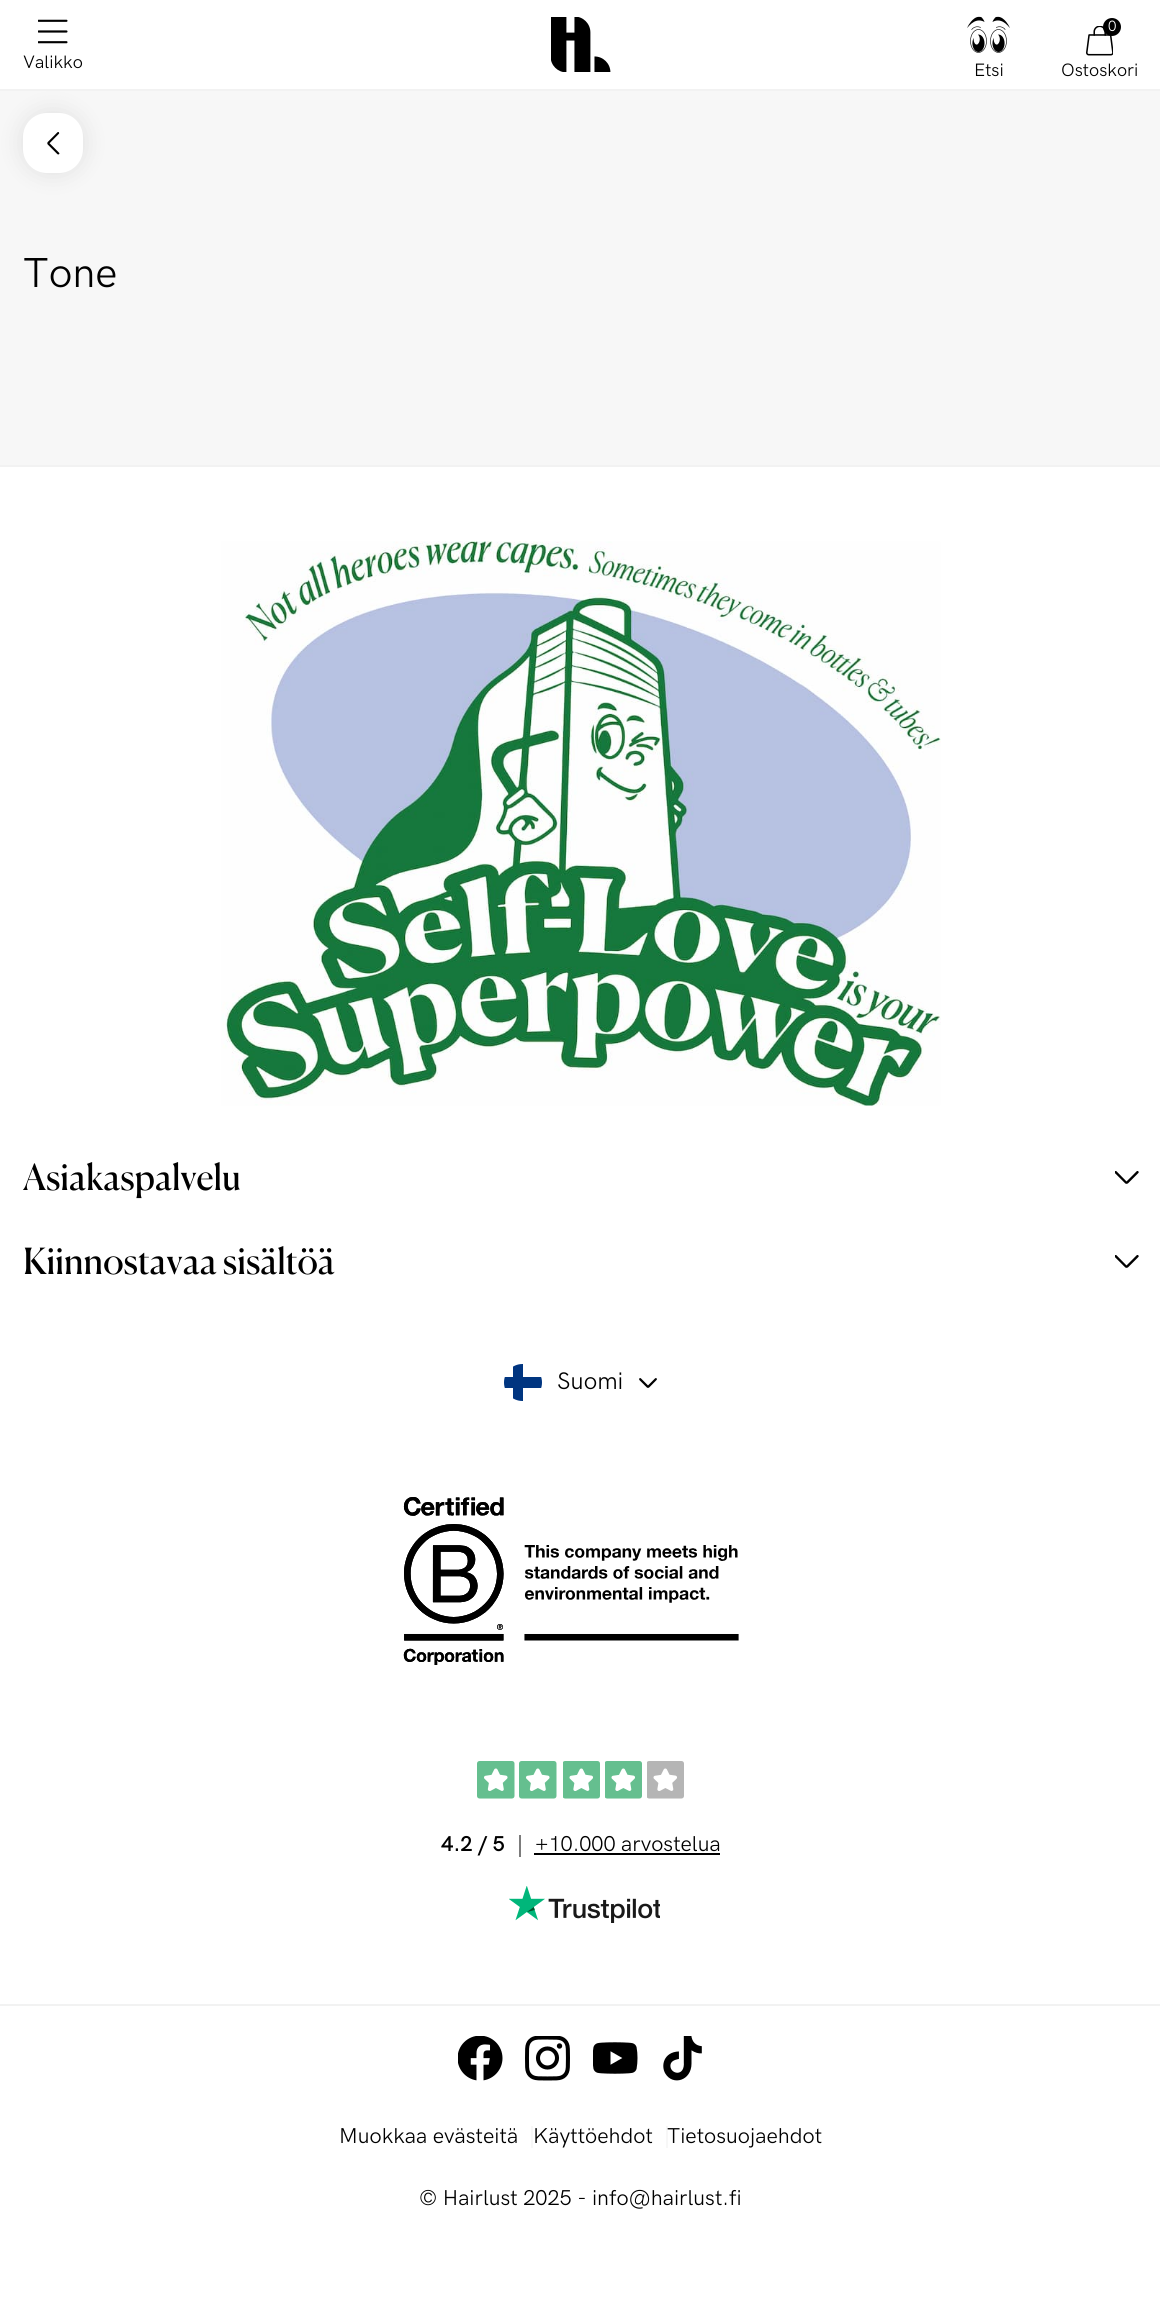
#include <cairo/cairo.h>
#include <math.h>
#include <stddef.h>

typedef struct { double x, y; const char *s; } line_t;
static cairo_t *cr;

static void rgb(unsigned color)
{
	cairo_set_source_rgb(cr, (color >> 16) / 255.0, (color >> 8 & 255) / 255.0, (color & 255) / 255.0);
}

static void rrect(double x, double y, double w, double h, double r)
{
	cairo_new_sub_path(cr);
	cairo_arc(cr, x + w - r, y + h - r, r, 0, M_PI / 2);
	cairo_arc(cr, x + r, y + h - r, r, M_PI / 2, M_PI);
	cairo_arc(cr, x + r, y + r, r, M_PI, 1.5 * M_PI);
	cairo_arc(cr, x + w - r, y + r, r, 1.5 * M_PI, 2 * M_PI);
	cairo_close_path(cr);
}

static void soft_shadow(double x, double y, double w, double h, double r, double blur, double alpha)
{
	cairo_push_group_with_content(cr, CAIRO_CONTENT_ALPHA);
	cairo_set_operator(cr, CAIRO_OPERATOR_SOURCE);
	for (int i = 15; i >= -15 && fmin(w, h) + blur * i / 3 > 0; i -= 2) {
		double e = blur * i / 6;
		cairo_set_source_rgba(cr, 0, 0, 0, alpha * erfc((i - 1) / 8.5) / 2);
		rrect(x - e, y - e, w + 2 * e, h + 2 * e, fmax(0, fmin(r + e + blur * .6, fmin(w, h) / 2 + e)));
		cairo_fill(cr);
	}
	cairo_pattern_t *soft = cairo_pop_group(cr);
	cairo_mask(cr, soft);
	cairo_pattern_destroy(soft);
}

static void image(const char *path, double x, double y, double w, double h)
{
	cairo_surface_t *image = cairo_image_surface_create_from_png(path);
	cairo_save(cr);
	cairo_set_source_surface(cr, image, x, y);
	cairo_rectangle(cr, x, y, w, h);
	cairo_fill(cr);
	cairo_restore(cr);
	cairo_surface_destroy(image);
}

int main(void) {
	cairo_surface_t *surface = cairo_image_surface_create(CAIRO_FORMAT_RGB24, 1160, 2299);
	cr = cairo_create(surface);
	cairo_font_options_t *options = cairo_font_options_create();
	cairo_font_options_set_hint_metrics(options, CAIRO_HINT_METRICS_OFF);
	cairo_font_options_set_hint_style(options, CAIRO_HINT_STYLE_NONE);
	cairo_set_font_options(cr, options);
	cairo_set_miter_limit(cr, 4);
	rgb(0xffffff);
	cairo_paint(cr);
	rgb(0xf7f7f7);
	cairo_rectangle(cr, 0, 91, 1160, 374);
	cairo_fill(cr);
	rgb(0x000000);
	soft_shadow(23, 113, 60, 60, 24, 12, 0.1);
	rgb(0xf2f2f2);
	cairo_rectangle(cr, 0, 89, 1160, 2);
	cairo_fill(cr);
	image("img/1.png", 38, 19, 30, 25);
	image("img/2.png", 551, 17, 60, 55);
	image("img/3.png", 967, 16, 43, 37);
	image("img/4.png", 1086, 26, 27, 30);
	rgb(0x000000);
	cairo_arc(cr, 1112, 27, 9, 0, 2 * M_PI);
	cairo_fill(cr);
	rgb(0xffffff);
	rrect(23, 113, 60, 60, 24);
	cairo_fill(cr);
	image("img/5.png", 47, 132, 13, 23);
	rgb(0xf2f2f2);
	cairo_rectangle(cr, 0, 465, 1160, 2);
	cairo_fill(cr);
	cairo_rectangle(cr, 0, 2004, 1160, 2);
	cairo_fill(cr);
	image("img/6.png", 221, 541, 720, 565);
	image("img/7.png", 1115, 1171, 24, 13);
	image("img/7.png", 1115, 1255, 24, 13);
	cairo_save(cr);
	rrect(504, 1364, 38, 37, 18.5);
	cairo_clip(cr);
	rgb(0x003580);
	cairo_rectangle(cr, 504, 1377, 38, 11);
	cairo_fill(cr);
	cairo_rectangle(cr, 513, 1364, 10, 37);
	cairo_fill(cr);
	cairo_restore(cr);
	image("img/8.png", 639, 1378, 18, 10);
	image("img/9.png", 403, 1497, 336, 168);
	image("img/10.png", 477, 1761, 38, 38);
	image("img/10.png", 519, 1761, 38, 38);
	image("img/11.png", 563, 1761, 37, 38);
	image("img/11.png", 605, 1761, 37, 38);
	image("img/12.png", 647, 1761, 37, 38);
	rgb(0x7c7c7c);
	cairo_rectangle(cr, 519, 1835, 2, 22);
	cairo_fill(cr);
	rgb(0x000000);
	cairo_rectangle(cr, 534, 1853, 186, 2);
	cairo_fill(cr);
	image("img/13.png", 509, 1886, 151, 37);
	image("img/14.png", 458, 2036, 45, 45);
	image("img/15.png", 525, 2036, 45, 45);
	image("img/16.png", 593, 2042, 45, 32);
	image("img/17.png", 663, 2036, 39, 45);
	rgb(0xf7f7f7);
	cairo_rectangle(cr, 531, 2126, 2, 22);
	cairo_fill(cr);
	cairo_rectangle(cr, 666, 2126, 2, 22);
	cairo_fill(cr);
	cairo_select_font_face(cr, "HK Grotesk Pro", CAIRO_FONT_SLANT_NORMAL, CAIRO_FONT_WEIGHT_NORMAL);
	cairo_set_font_size(cr, 18);
	rgb(0x000000);
	cairo_move_to(cr, 23, 68);
	cairo_show_text(cr, "Valikko");
	cairo_move_to(cr, 974, 76);
	cairo_show_text(cr, "Etsi");
	cairo_set_font_size(cr, 15);
	rgb(0xffffff);
	cairo_move_to(cr, 1108, 31);
	cairo_show_text(cr, "0");
	cairo_set_font_size(cr, 18);
	rgb(0x000000);
	cairo_move_to(cr, 1061, 76);
	cairo_show_text(cr, "Ostoskori");
	cairo_set_font_size(cr, 42);
	cairo_move_to(cr, 23, 287);
	cairo_show_text(cr, "Tone");
	cairo_select_font_face(cr, "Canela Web", CAIRO_FONT_SLANT_NORMAL, CAIRO_FONT_WEIGHT_NORMAL);
	cairo_set_font_size(cr, 36);
	cairo_move_to(cr, 23, 1190);
	cairo_show_text(cr, "Asiakaspalvelu");
	cairo_move_to(cr, 23, 1274);
	cairo_show_text(cr, "Kiinnostavaa sisältöä");
	cairo_select_font_face(cr, "HK Grotesk Pro", CAIRO_FONT_SLANT_NORMAL, CAIRO_FONT_WEIGHT_NORMAL);
	cairo_set_font_size(cr, 24);
	cairo_move_to(cr, 557, 1389);
	cairo_show_text(cr, "Suomi");
	cairo_select_font_face(cr, "HK Grotesk Pro SemiBold", CAIRO_FONT_SLANT_NORMAL, CAIRO_FONT_WEIGHT_NORMAL);
	cairo_set_font_size(cr, 21.6);
	cairo_move_to(cr, 441, 1851);
	cairo_show_text(cr, "4.2 / 5");
	cairo_select_font_face(cr, "HK Grotesk Pro", CAIRO_FONT_SLANT_NORMAL, CAIRO_FONT_WEIGHT_NORMAL);
	{
		static const line_t items[] = {
			{535, 1851, "+10.000 arvostelua"},
			{339, 2143, "Muokkaa evästeitä"},
			{533, 2143, "Käyttöehdot"},
			{667, 2143, "Tietosuojaehdot"},
			{419, 2205, "© Hairlust 2025 - info@hairlust.fi"},
		};
		for (size_t i = 0; i < sizeof items / sizeof *items; i++) {
			cairo_move_to(cr, items[i].x, items[i].y);
			cairo_show_text(cr, items[i].s);
		}
	}
	cairo_surface_write_to_png(surface, "page.png");
	cairo_font_options_destroy(options);
	cairo_destroy(cr);
	cairo_surface_destroy(surface);
	return 0;
}
